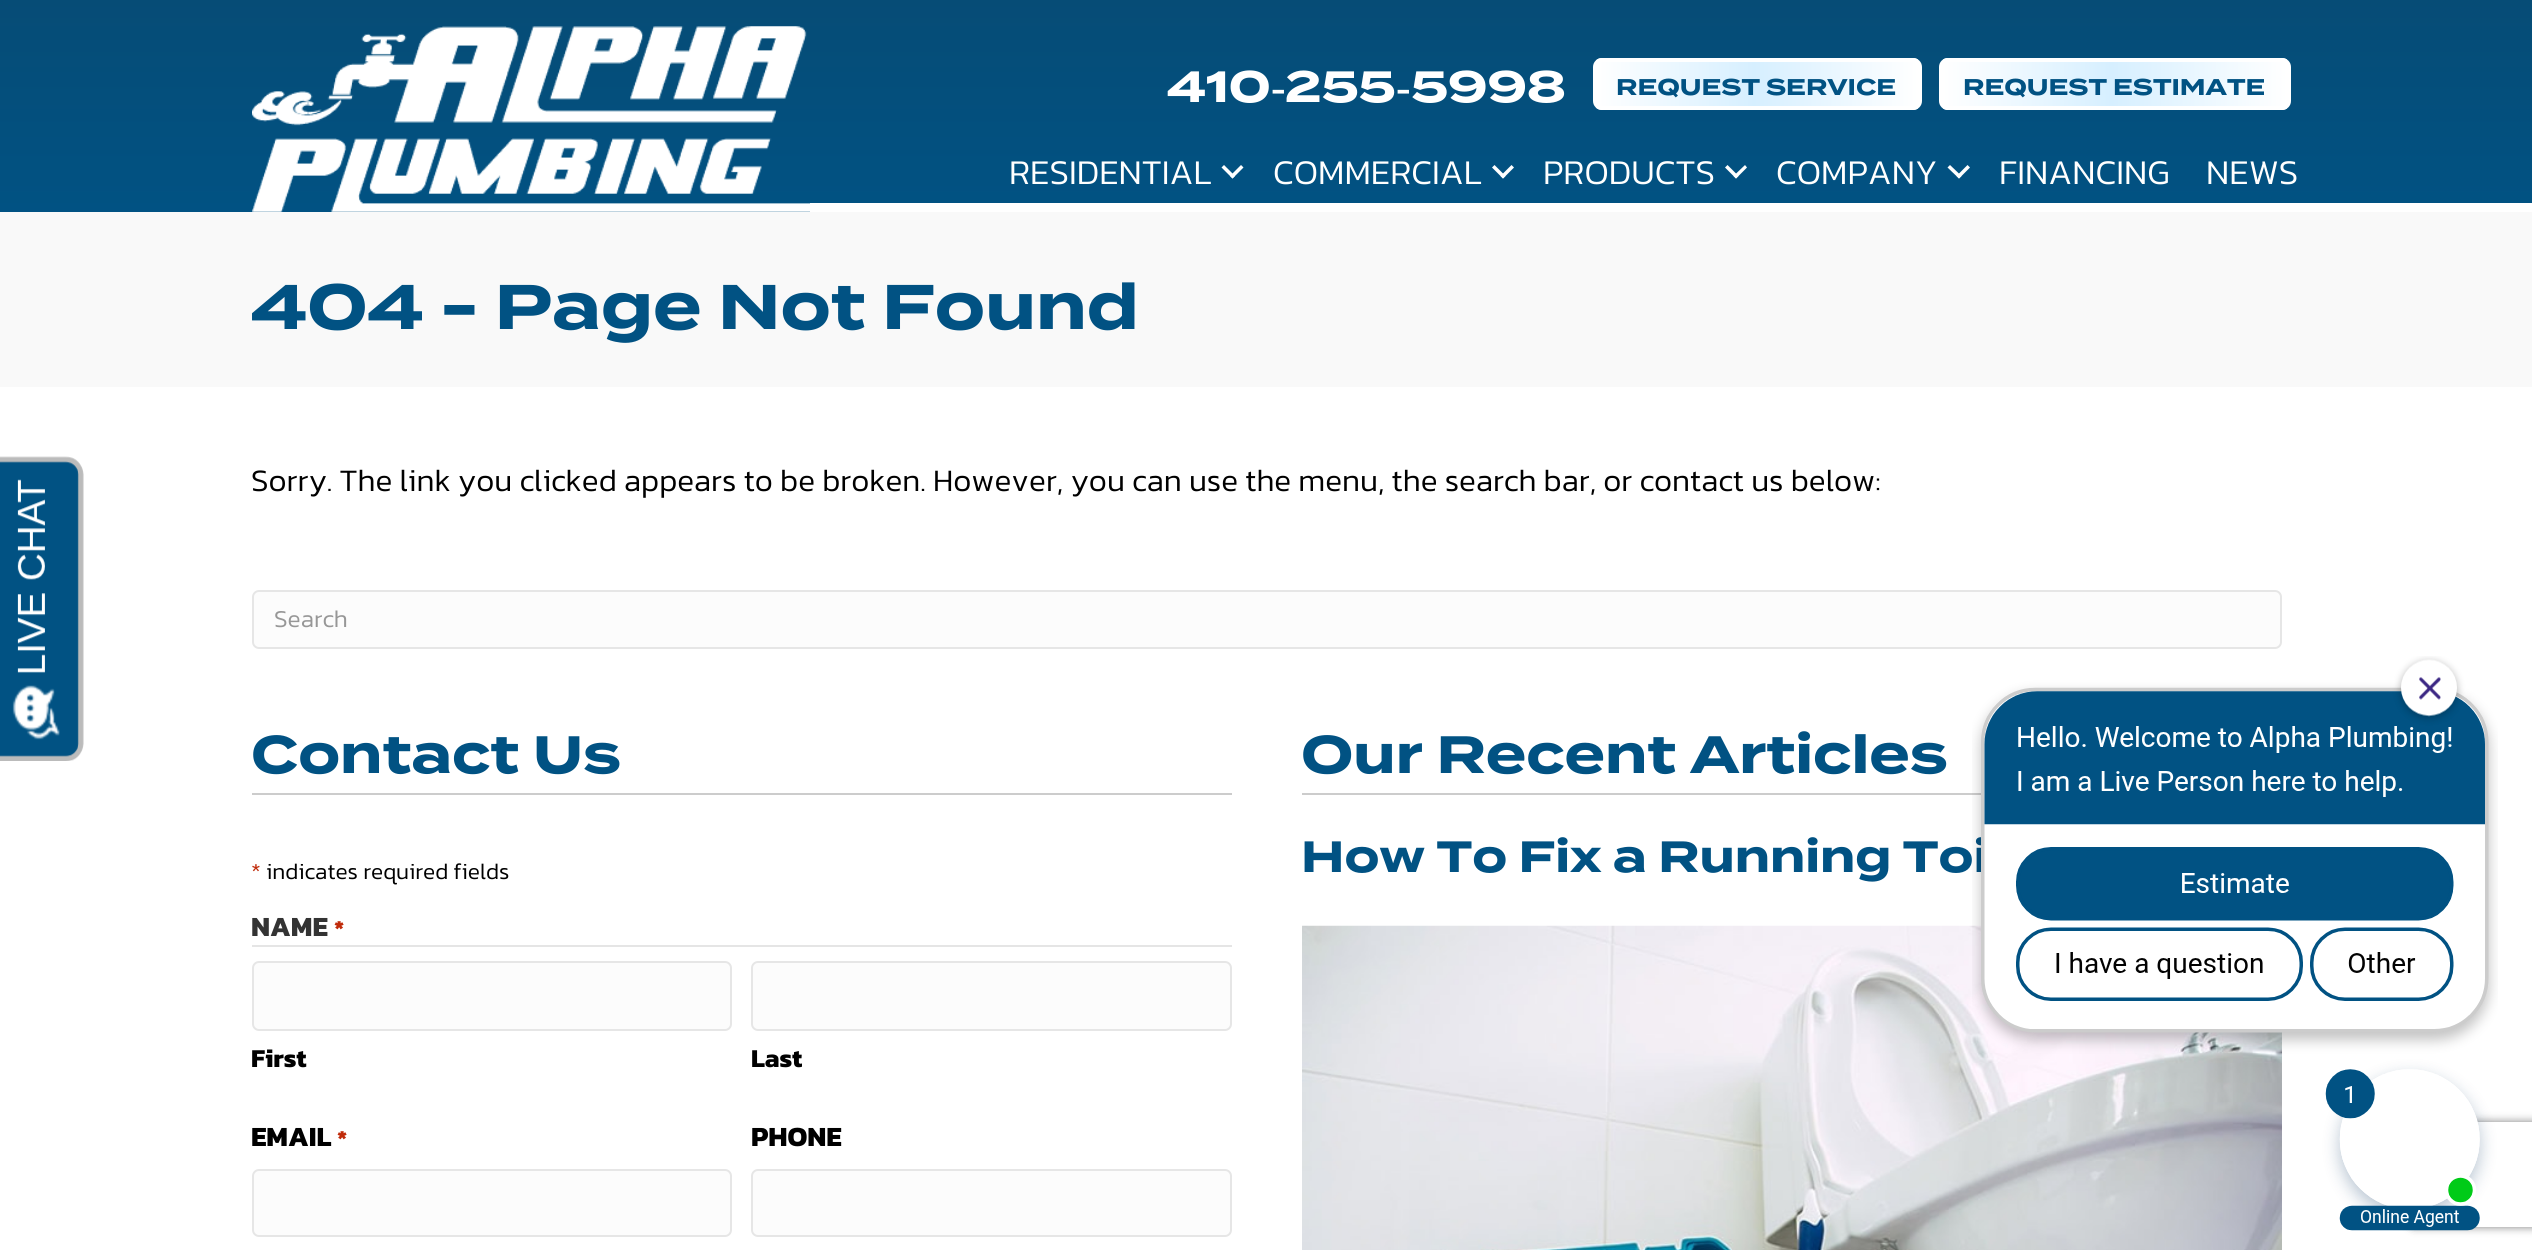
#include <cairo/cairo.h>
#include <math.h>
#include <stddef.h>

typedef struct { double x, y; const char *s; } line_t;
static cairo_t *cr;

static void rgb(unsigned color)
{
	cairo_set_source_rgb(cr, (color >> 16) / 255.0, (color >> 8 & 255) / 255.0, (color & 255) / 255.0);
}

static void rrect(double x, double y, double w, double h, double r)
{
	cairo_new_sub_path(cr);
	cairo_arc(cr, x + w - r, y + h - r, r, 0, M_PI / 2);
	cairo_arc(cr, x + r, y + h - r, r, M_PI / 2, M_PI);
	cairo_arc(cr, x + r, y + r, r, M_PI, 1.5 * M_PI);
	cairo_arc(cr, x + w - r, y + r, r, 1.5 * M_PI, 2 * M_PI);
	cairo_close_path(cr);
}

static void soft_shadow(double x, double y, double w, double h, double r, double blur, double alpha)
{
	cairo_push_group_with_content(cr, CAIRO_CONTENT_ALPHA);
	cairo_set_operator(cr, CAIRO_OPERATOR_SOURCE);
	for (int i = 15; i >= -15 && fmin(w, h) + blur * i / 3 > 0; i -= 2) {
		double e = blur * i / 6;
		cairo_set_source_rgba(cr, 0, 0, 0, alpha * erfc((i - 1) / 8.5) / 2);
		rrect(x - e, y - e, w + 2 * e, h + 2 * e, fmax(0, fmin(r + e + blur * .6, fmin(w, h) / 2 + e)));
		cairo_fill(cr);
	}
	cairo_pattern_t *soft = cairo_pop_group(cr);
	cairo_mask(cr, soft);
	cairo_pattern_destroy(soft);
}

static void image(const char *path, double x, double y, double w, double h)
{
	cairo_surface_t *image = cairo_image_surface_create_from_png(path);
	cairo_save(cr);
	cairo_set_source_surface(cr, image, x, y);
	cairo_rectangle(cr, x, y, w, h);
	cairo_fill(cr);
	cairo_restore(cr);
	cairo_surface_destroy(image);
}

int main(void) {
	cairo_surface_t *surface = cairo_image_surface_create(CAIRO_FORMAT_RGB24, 2532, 1250);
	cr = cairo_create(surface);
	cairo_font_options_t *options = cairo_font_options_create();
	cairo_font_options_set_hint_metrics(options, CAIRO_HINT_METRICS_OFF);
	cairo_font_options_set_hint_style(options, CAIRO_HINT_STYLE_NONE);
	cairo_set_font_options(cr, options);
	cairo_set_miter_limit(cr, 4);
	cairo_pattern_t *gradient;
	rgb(0xffffff);
	cairo_paint(cr);
	image("img/1.png", 0, 456, 84, 305);
	gradient = cairo_pattern_create_linear(1266, 212, 1266, 0);
	cairo_pattern_add_color_stop_rgba(gradient, 0, 0.004, 0.322, 0.514, 1);
	cairo_pattern_add_color_stop_rgba(gradient, 1, 0.024, 0.298, 0.463, 1);
	cairo_set_source(cr, gradient);
	cairo_pattern_destroy(gradient);
	cairo_rectangle(cr, 0, 0, 2532, 212);
	cairo_fill(cr);
	image("img/2.png", 252, 26, 558, 186);
	rgb(0xffffff);
	cairo_rectangle(cr, 810, 203, 1722, 9);
	cairo_fill(cr);
	cairo_save(cr);
	rrect(1593, 58, 329, 52, 9);
	cairo_clip(cr);
	gradient = cairo_pattern_create_linear(1596, 84, 1918, 84);
	cairo_pattern_add_color_stop_rgba(gradient, 0, 1, 1, 1, 1);
	cairo_pattern_add_color_stop_rgba(gradient, 0.49, 0.839, 0.937, 1, 1);
	cairo_pattern_add_color_stop_rgba(gradient, 1, 1, 1, 1, 1);
	cairo_set_source(cr, gradient);
	cairo_pattern_destroy(gradient);
	cairo_rectangle(cr, 1596, 58, 322, 52);
	cairo_fill(cr);
	cairo_restore(cr);
	rrect(1595, 60, 325, 48, 7);
	cairo_set_line_width(cr, 4);
	cairo_stroke(cr);
	cairo_save(cr);
	rrect(1939, 58, 352, 52, 9);
	cairo_clip(cr);
	gradient = cairo_pattern_create_linear(1943, 84, 2287, 84);
	cairo_pattern_add_color_stop_rgba(gradient, 0, 1, 1, 1, 1);
	cairo_pattern_add_color_stop_rgba(gradient, 0.49, 0.839, 0.937, 1, 1);
	cairo_pattern_add_color_stop_rgba(gradient, 1, 1, 1, 1, 1);
	cairo_set_source(cr, gradient);
	cairo_pattern_destroy(gradient);
	cairo_rectangle(cr, 1943, 58, 344, 52);
	cairo_fill(cr);
	cairo_restore(cr);
	rrect(1941, 60, 348, 48, 7);
	cairo_stroke(cr);
	cairo_new_path(cr);
	cairo_move_to(cr, 1241, 165);
	cairo_line_to(cr, 1243.5, 167.5);
	cairo_line_to(cr, 1232.5, 178.5);
	cairo_line_to(cr, 1230, 176);
	cairo_close_path(cr);
	cairo_fill(cr);
	cairo_new_path(cr);
	cairo_move_to(cr, 1224, 165);
	cairo_line_to(cr, 1235, 176);
	cairo_line_to(cr, 1232.5, 178.5);
	cairo_line_to(cr, 1221.5, 167.5);
	cairo_close_path(cr);
	cairo_fill(cr);
	cairo_new_path(cr);
	cairo_move_to(cr, 1511.5, 165);
	cairo_line_to(cr, 1514, 167.5);
	cairo_line_to(cr, 1503, 178.5);
	cairo_line_to(cr, 1500.5, 176);
	cairo_close_path(cr);
	cairo_fill(cr);
	cairo_new_path(cr);
	cairo_move_to(cr, 1494.5, 165);
	cairo_line_to(cr, 1505.5, 176);
	cairo_line_to(cr, 1503, 178.5);
	cairo_line_to(cr, 1492, 167.5);
	cairo_close_path(cr);
	cairo_fill(cr);
	cairo_new_path(cr);
	cairo_move_to(cr, 1745, 165);
	cairo_line_to(cr, 1747, 167.5);
	cairo_line_to(cr, 1736, 178.5);
	cairo_line_to(cr, 1733.5, 176);
	cairo_close_path(cr);
	cairo_fill(cr);
	cairo_new_path(cr);
	cairo_move_to(cr, 1727.5, 165);
	cairo_line_to(cr, 1738.5, 176);
	cairo_line_to(cr, 1736, 178.5);
	cairo_line_to(cr, 1725, 167.5);
	cairo_close_path(cr);
	cairo_fill(cr);
	cairo_new_path(cr);
	cairo_move_to(cr, 1967.5, 165);
	cairo_line_to(cr, 1970, 167.5);
	cairo_line_to(cr, 1959, 178.5);
	cairo_line_to(cr, 1956.5, 176);
	cairo_close_path(cr);
	cairo_fill(cr);
	cairo_new_path(cr);
	cairo_move_to(cr, 1950, 165);
	cairo_line_to(cr, 1961.5, 176);
	cairo_line_to(cr, 1959, 178.5);
	cairo_line_to(cr, 1947.5, 167.5);
	cairo_close_path(cr);
	cairo_fill(cr);
	rgb(0xf9f9f9);
	cairo_rectangle(cr, 0, 212, 2532, 175);
	cairo_fill(cr);
	rgb(0xfcfcfc);
	rrect(253, 591, 2028, 57, 6);
	cairo_fill_preserve(cr);
	rgb(0xe6e6e6);
	cairo_set_line_width(cr, 2);
	cairo_stroke(cr);
	rgb(0xcccccc);
	cairo_rectangle(cr, 252, 793, 980, 2);
	cairo_fill(cr);
	rgb(0xe5e5e5);
	cairo_rectangle(cr, 252, 945, 980, 2);
	cairo_fill(cr);
	rgb(0xfcfcfc);
	rrect(253, 962, 478, 68, 6);
	cairo_fill_preserve(cr);
	rgb(0xe6e6e6);
	cairo_stroke(cr);
	rgb(0xfcfcfc);
	rrect(752, 962, 479, 68, 6);
	cairo_fill_preserve(cr);
	rgb(0xe6e6e6);
	cairo_stroke(cr);
	rgb(0xfcfcfc);
	rrect(253, 1170, 478, 66, 6);
	cairo_fill_preserve(cr);
	rgb(0xe6e6e6);
	cairo_stroke(cr);
	rgb(0xfcfcfc);
	rrect(752, 1170, 479, 66, 6);
	cairo_fill_preserve(cr);
	rgb(0xe6e6e6);
	cairo_stroke(cr);
	cairo_save(cr);
	cairo_set_fill_rule(cr, CAIRO_FILL_RULE_EVEN_ODD);
	cairo_new_path(cr);
	cairo_move_to(cr, 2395, 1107);
	cairo_line_to(cr, 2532, 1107);
	cairo_line_to(cr, 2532, 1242);
	cairo_line_to(cr, 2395, 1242);
	cairo_close_path(cr);
	cairo_move_to(cr, 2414, 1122);
	cairo_line_to(cr, 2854, 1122);
	cairo_curve_to(cr, 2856, 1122, 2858, 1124, 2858, 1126);
	cairo_line_to(cr, 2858, 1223);
	cairo_curve_to(cr, 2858, 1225, 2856, 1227, 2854, 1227);
	cairo_line_to(cr, 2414, 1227);
	cairo_curve_to(cr, 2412, 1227, 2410, 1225, 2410, 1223);
	cairo_line_to(cr, 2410, 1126);
	cairo_curve_to(cr, 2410, 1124, 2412, 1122, 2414, 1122);
	cairo_close_path(cr);
	cairo_clip(cr);
	rgb(0x808080);
	soft_shadow(2410, 1122, 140, 105, 4, 4.5, 1);
	cairo_restore(cr);
	rgb(0xcccccc);
	cairo_rectangle(cr, 1302, 793, 679, 2);
	cairo_fill(cr);
	image("img/3.png", 1302, 925, 980, 325);
	cairo_select_font_face(cr, "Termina", CAIRO_FONT_SLANT_NORMAL, CAIRO_FONT_WEIGHT_BOLD);
	cairo_set_font_size(cr, 43.75);
	rgb(0xffffff);
	cairo_move_to(cr, 1167, 102);
	cairo_show_text(cr, "410");
	cairo_select_font_face(cr, "Liberation Serif", CAIRO_FONT_SLANT_NORMAL, CAIRO_FONT_WEIGHT_BOLD);
	cairo_move_to(cr, 1271, 102);
	cairo_show_text(cr, "‐");
	cairo_select_font_face(cr, "Termina", CAIRO_FONT_SLANT_NORMAL, CAIRO_FONT_WEIGHT_BOLD);
	cairo_move_to(cr, 1285, 102);
	cairo_show_text(cr, "255");
	cairo_select_font_face(cr, "Liberation Serif", CAIRO_FONT_SLANT_NORMAL, CAIRO_FONT_WEIGHT_BOLD);
	cairo_move_to(cr, 1396, 102);
	cairo_show_text(cr, "‐");
	cairo_select_font_face(cr, "Termina", CAIRO_FONT_SLANT_NORMAL, CAIRO_FONT_WEIGHT_BOLD);
	cairo_move_to(cr, 1411, 102);
	cairo_show_text(cr, "5998");
	cairo_set_font_size(cr, 22.75);
	rgb(0x015283);
	cairo_move_to(cr, 1616, 95);
	cairo_show_text(cr, "REQUEST SERVICE");
	cairo_move_to(cr, 1963, 95);
	cairo_show_text(cr, "REQUEST ESTIMATE");
	cairo_select_font_face(cr, "Kanit Light", CAIRO_FONT_SLANT_NORMAL, CAIRO_FONT_WEIGHT_NORMAL);
	cairo_set_font_size(cr, 35);
	rgb(0xffffff);
	{
		static const line_t items[] = {
			{1009, 184, "RESIDENTIAL"},
			{1273, 184, "COMMERCIAL"},
			{1543, 184, "PRODUCTS"},
			{1776, 184, "COMPANY"},
			{1999, 184, "FINANCING"},
			{2206, 184, "NEWS"},
		};
		for (size_t i = 0; i < sizeof items / sizeof *items; i++) {
			cairo_move_to(cr, items[i].x, items[i].y);
			cairo_show_text(cr, items[i].s);
		}
	}
	cairo_select_font_face(cr, "Termina", CAIRO_FONT_SLANT_NORMAL, CAIRO_FONT_WEIGHT_BOLD);
	cairo_set_font_size(cr, 63);
	rgb(0x015283);
	cairo_move_to(cr, 251, 329);
	cairo_show_text(cr, "404 - Page Not Found");
	cairo_select_font_face(cr, "Kanit Light", CAIRO_FONT_SLANT_NORMAL, CAIRO_FONT_WEIGHT_NORMAL);
	cairo_set_font_size(cr, 31.5);
	rgb(0x000000);
	cairo_move_to(cr, 251, 491);
	cairo_show_text(cr, "Sorry. The link you clicked appears to be broken. However, you can use the menu, the search bar, or contact us below:");
	cairo_set_font_size(cr, 24.5);
	rgb(0x979797);
	cairo_move_to(cr, 274, 627);
	cairo_show_text(cr, "Search");
	cairo_select_font_face(cr, "Termina", CAIRO_FONT_SLANT_NORMAL, CAIRO_FONT_WEIGHT_BOLD);
	cairo_set_font_size(cr, 52.5);
	rgb(0x015283);
	cairo_move_to(cr, 251, 773);
	cairo_show_text(cr, "Contact Us");
	cairo_select_font_face(cr, "Kanit Light", CAIRO_FONT_SLANT_NORMAL, CAIRO_FONT_WEIGHT_NORMAL);
	cairo_set_font_size(cr, 23);
	rgb(0xc02b0a);
	cairo_move_to(cr, 251, 879);
	cairo_show_text(cr, "*");
	cairo_set_font_size(cr, 22.75);
	rgb(0x000000);
	cairo_move_to(cr, 266, 879);
	cairo_show_text(cr, "indicates required fields");
	cairo_select_font_face(cr, "Kanit", CAIRO_FONT_SLANT_NORMAL, CAIRO_FONT_WEIGHT_BOLD);
	cairo_set_font_size(cr, 28);
	rgb(0x333333);
	cairo_move_to(cr, 251, 936);
	cairo_show_text(cr, "NAME");
	cairo_set_font_size(cr, 23);
	rgb(0xc02b0a);
	cairo_move_to(cr, 334, 936);
	cairo_show_text(cr, "*");
	cairo_set_font_size(cr, 26);
	rgb(0x000000);
	cairo_move_to(cr, 251, 1067);
	cairo_show_text(cr, "First");
	cairo_move_to(cr, 751, 1067);
	cairo_show_text(cr, "Last");
	cairo_set_font_size(cr, 28);
	cairo_move_to(cr, 251, 1146);
	cairo_show_text(cr, "EMAIL");
	cairo_set_font_size(cr, 23);
	rgb(0xc02b0a);
	cairo_move_to(cr, 337, 1146);
	cairo_show_text(cr, "*");
	cairo_set_font_size(cr, 28);
	rgb(0x000000);
	cairo_move_to(cr, 751, 1146);
	cairo_show_text(cr, "PHONE");
	cairo_select_font_face(cr, "Termina", CAIRO_FONT_SLANT_NORMAL, CAIRO_FONT_WEIGHT_BOLD);
	cairo_set_font_size(cr, 52.5);
	rgb(0x015283);
	cairo_move_to(cr, 1301, 773);
	cairo_show_text(cr, "Our Recent Articles");
	cairo_set_font_size(cr, 43.75);
	cairo_move_to(cr, 1301, 872);
	cairo_show_text(cr, "How To Fix a Running Toi");
	image("img/4.png", 1972, 656, 526, 575);
	cairo_surface_write_to_png(surface, "page.png");
	cairo_font_options_destroy(options);
	cairo_destroy(cr);
	cairo_surface_destroy(surface);
	return 0;
}
